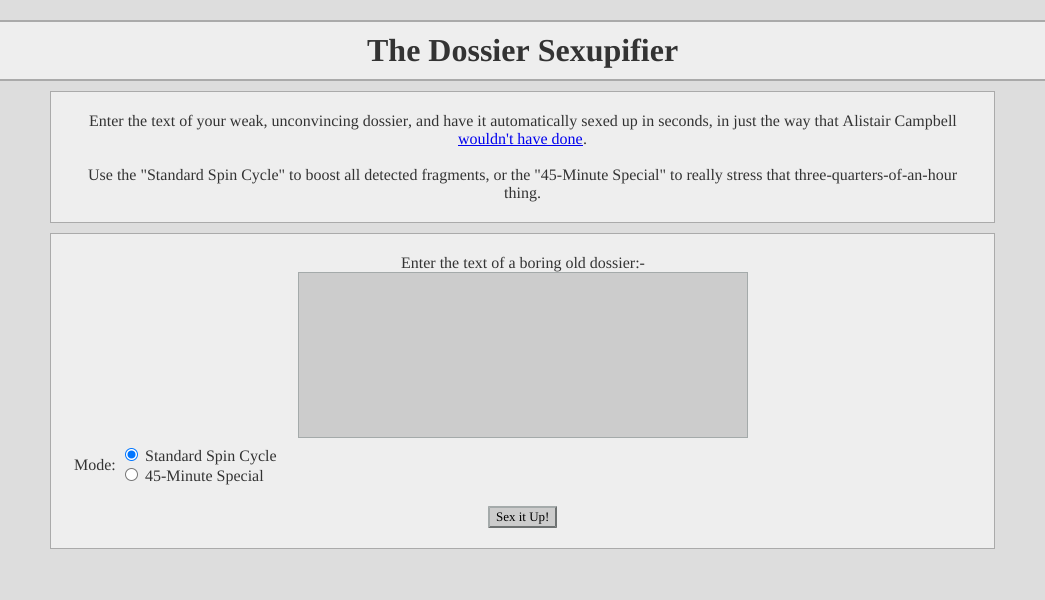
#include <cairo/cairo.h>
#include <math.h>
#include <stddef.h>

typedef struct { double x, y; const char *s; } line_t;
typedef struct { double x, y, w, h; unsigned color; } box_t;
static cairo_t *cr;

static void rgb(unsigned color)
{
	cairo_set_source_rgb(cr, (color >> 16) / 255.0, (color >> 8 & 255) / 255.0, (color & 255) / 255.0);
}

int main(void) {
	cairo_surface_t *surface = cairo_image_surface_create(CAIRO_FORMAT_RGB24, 1045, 600);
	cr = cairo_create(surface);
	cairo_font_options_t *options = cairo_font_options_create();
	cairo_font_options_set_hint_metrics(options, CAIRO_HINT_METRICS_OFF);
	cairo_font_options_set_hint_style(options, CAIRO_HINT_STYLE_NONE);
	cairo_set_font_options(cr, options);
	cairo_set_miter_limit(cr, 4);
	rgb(0xdddddd);
	cairo_paint(cr);
	{
		static const box_t items[] = {
			{0, 22, 1045, 57, 0xeeeeee},
			{0, 20, 1045, 2, 0xaaaaaa},
			{0, 79, 1045, 2, 0xaaaaaa},
		};
		for (size_t i = 0; i < sizeof items / sizeof *items; i++) {
			rgb(items[i].color);
			cairo_rectangle(cr, items[i].x, items[i].y, items[i].w, items[i].h);
			cairo_fill(cr);
		}
	}
	rgb(0xeeeeee);
	cairo_rectangle(cr, 50.5, 91.5, 944, 131);
	cairo_fill_preserve(cr);
	rgb(0xaaaaaa);
	cairo_set_line_width(cr, 1);
	cairo_stroke(cr);
	rgb(0x0000ee);
	cairo_rectangle(cr, 458, 145, 125, 1);
	cairo_fill(cr);
	rgb(0xeeeeee);
	cairo_rectangle(cr, 50.5, 233.5, 944, 315);
	cairo_fill_preserve(cr);
	rgb(0xaaaaaa);
	cairo_stroke(cr);
	rgb(0xcccccc);
	cairo_rectangle(cr, 298.5, 272.5, 449, 165);
	cairo_fill_preserve(cr);
	rgb(0xa4aaaa);
	cairo_stroke(cr);
	rgb(0xffffff);
	cairo_arc(cr, 131.5, 454.5, 6, 0, 2 * M_PI);
	cairo_fill_preserve(cr);
	rgb(0x0075ff);
	cairo_stroke(cr);
	cairo_arc(cr, 131.5, 454.5, 4, 0, 2 * M_PI);
	cairo_fill(cr);
	rgb(0xffffff);
	cairo_arc(cr, 131.5, 474.5, 6, 0, 2 * M_PI);
	cairo_fill_preserve(cr);
	rgb(0x767676);
	cairo_stroke(cr);
	rgb(0xcccccc);
	cairo_rectangle(cr, 488, 506, 69, 22);
	cairo_fill(cr);
	rgb(0xa4aaaa);
	cairo_new_path(cr);
	cairo_move_to(cr, 488, 506);
	cairo_line_to(cr, 557, 506);
	cairo_line_to(cr, 555, 508);
	cairo_line_to(cr, 490, 508);
	cairo_close_path(cr);
	cairo_fill(cr);
	rgb(0x6d7171);
	cairo_new_path(cr);
	cairo_move_to(cr, 557, 506);
	cairo_line_to(cr, 557, 528);
	cairo_line_to(cr, 555, 526);
	cairo_line_to(cr, 555, 508);
	cairo_close_path(cr);
	cairo_fill(cr);
	cairo_new_path(cr);
	cairo_move_to(cr, 557, 528);
	cairo_line_to(cr, 488, 528);
	cairo_line_to(cr, 490, 526);
	cairo_line_to(cr, 555, 526);
	cairo_close_path(cr);
	cairo_fill(cr);
	rgb(0xa4aaaa);
	cairo_new_path(cr);
	cairo_move_to(cr, 488, 528);
	cairo_line_to(cr, 488, 506);
	cairo_line_to(cr, 490, 508);
	cairo_line_to(cr, 490, 526);
	cairo_close_path(cr);
	cairo_fill(cr);
	cairo_select_font_face(cr, "Liberation Serif", CAIRO_FONT_SLANT_NORMAL, CAIRO_FONT_WEIGHT_BOLD);
	cairo_set_font_size(cr, 32);
	rgb(0x333333);
	cairo_move_to(cr, 367, 61);
	cairo_show_text(cr, "The Dossier Sexupifier");
	cairo_select_font_face(cr, "Liberation Serif", CAIRO_FONT_SLANT_NORMAL, CAIRO_FONT_WEIGHT_NORMAL);
	cairo_set_font_size(cr, 16);
	cairo_move_to(cr, 89, 126);
	cairo_show_text(cr, "Enter the text of your weak, unconvincing dossier, and have it automatically sexed up in seconds, in just the way that Alistair Campbell");
	rgb(0x0000ee);
	cairo_move_to(cr, 458, 144);
	cairo_show_text(cr, "wouldn't have done");
	rgb(0x333333);
	{
		static const line_t items[] = {
			{583, 144, "."},
			{88, 180, "Use the \"Standard Spin Cycle\" to boost all detected fragments, or the \"45-Minute Special\" to really stress that three-quarters-of-an-hour"},
			{504, 198, "thing."},
			{401, 268, "Enter the text of a boring old dossier:-"},
			{74, 470, "Mode:"},
			{145, 461, "Standard Spin Cycle"},
			{145, 481, "45-Minute Special"},
		};
		for (size_t i = 0; i < sizeof items / sizeof *items; i++) {
			cairo_move_to(cr, items[i].x, items[i].y);
			cairo_show_text(cr, items[i].s);
		}
	}
	cairo_set_font_size(cr, 13);
	rgb(0x000000);
	cairo_move_to(cr, 496, 521);
	cairo_show_text(cr, "Sex it Up!");
	cairo_surface_write_to_png(surface, "page.png");
	cairo_font_options_destroy(options);
	cairo_destroy(cr);
	cairo_surface_destroy(surface);
	return 0;
}
